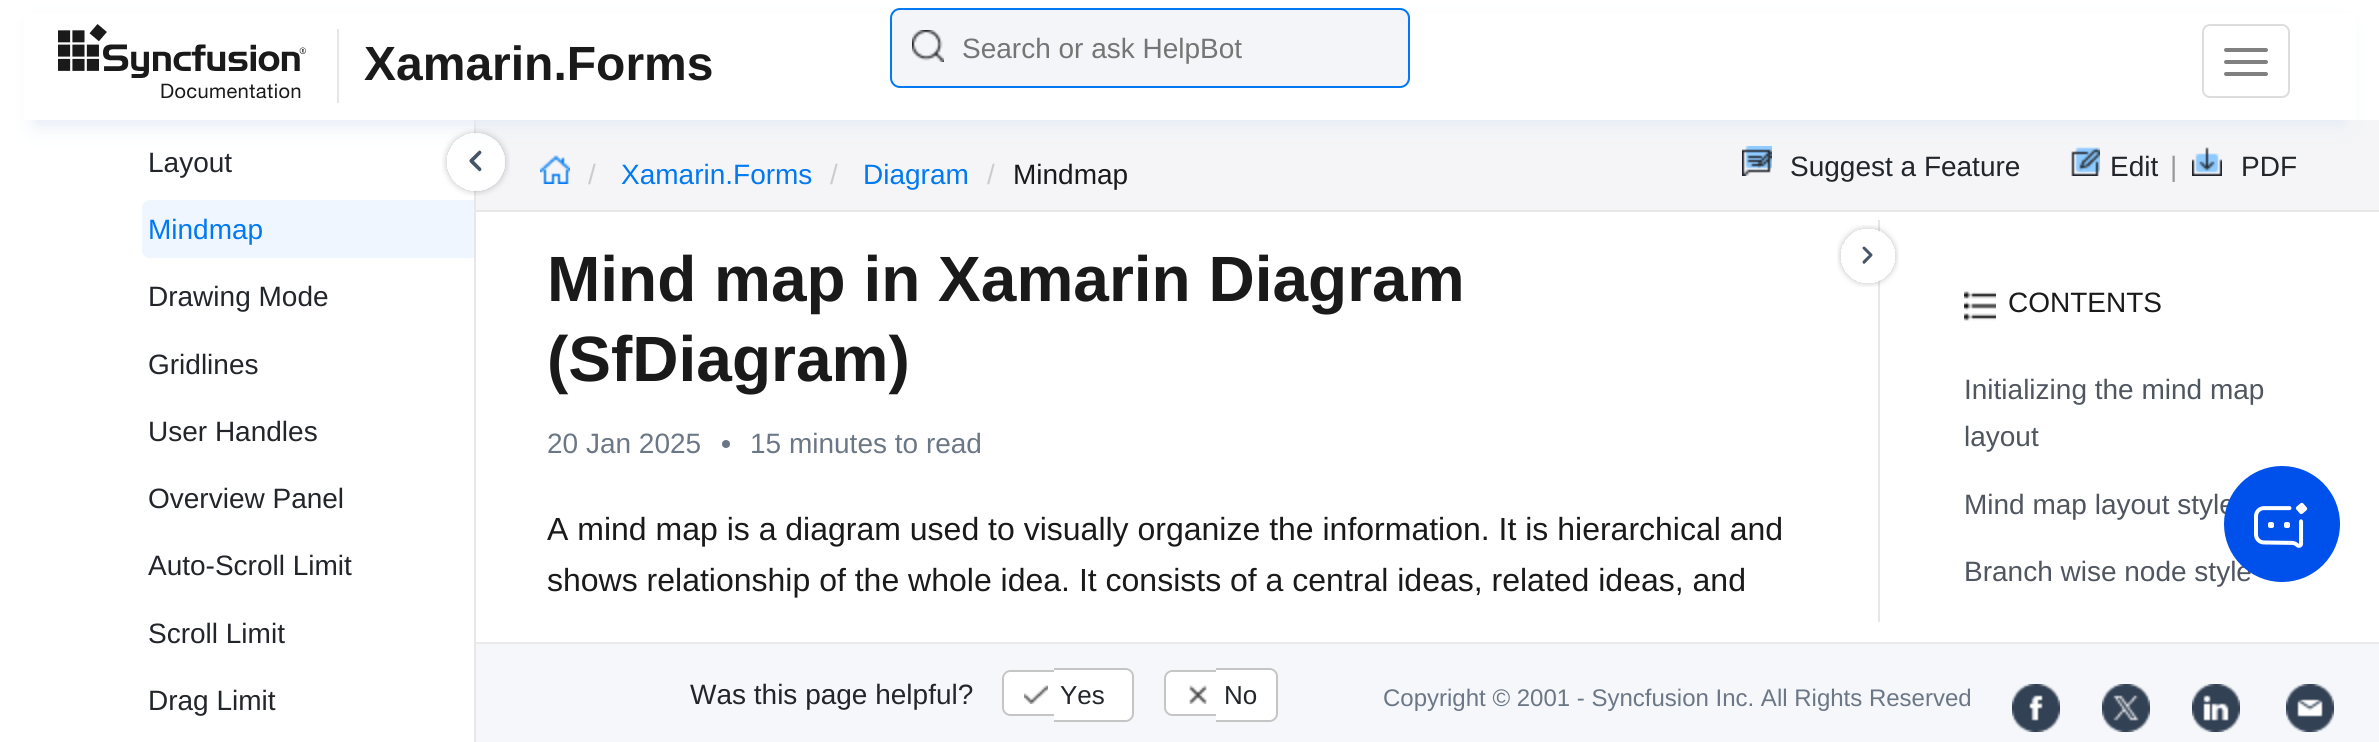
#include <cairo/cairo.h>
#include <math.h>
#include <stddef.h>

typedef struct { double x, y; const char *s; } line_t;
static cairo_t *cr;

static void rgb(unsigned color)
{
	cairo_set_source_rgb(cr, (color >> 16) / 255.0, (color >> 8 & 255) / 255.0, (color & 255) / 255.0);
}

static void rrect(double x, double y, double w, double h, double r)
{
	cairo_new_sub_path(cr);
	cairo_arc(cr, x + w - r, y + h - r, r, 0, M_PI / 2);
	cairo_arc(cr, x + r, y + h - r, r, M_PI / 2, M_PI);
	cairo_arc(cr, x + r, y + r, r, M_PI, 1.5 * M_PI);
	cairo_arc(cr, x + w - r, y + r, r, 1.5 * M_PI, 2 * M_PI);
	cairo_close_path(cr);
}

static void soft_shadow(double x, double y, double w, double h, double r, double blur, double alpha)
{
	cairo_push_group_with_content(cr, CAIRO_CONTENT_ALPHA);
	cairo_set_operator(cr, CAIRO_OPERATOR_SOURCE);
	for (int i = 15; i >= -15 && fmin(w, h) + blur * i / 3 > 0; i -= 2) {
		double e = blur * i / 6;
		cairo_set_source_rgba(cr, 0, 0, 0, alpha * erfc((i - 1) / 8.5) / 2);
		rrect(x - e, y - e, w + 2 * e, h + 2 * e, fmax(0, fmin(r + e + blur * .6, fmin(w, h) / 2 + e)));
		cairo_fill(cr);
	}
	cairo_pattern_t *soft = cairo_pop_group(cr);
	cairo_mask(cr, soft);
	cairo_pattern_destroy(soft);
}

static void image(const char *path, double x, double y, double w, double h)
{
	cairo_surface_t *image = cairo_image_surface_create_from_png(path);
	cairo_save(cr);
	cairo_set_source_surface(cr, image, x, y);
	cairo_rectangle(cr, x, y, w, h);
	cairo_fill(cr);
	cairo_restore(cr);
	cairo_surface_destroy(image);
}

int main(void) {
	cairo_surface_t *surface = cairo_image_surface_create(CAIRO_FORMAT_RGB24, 2379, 742);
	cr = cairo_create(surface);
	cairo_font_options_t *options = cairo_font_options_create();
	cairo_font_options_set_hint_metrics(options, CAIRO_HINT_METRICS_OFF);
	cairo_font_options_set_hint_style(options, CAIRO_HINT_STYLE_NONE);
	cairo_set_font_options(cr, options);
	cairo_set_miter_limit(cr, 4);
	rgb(0xffffff);
	cairo_paint(cr);
	rgb(0xf5f5f7);
	cairo_rectangle(cr, 476, 120, 1903, 90);
	cairo_fill(cr);
	image("img/3.png", 540, 155, 30, 29);
	image("img/4.png", 1742, 146, 30, 30);
	image("img/5.png", 2071, 147, 29, 29);
	image("img/6.png", 2192, 147, 30, 29);
	rgb(0xe7e7e7);
	cairo_rectangle(cr, 474, 120, 2, 622);
	cairo_fill(cr);
	image("img/7.png", 442, 128, 68, 68);
	rgb(0xe2eaf5);
	soft_shadow(36, 28, 2308, 96, 0, 11, 1);
	rgb(0xffffff);
	cairo_rectangle(cr, 24, 13, 2332, 107);
	cairo_fill(cr);
	image("img/1.png", 58, 24, 281, 79);
	rgb(0xf4f5f8);
	rrect(890, 8, 520, 80, 10);
	cairo_fill(cr);
	image("img/2.png", 912, 30, 32, 32);
	rrect(891, 9, 518, 78, 9);
	rgb(0x0079f3);
	cairo_stroke(cr);
	rrect(2203, 25, 86, 72, 7);
	rgb(0xdddddd);
	cairo_stroke(cr);
	rgb(0x808080);
	rrect(2224, 48, 44, 4, 2);
	cairo_fill(cr);
	rrect(2224, 60, 44, 4, 2);
	cairo_fill(cr);
	rrect(2224, 72, 44, 4, 2);
	cairo_fill(cr);
	rgb(0xe7e7e7);
	cairo_rectangle(cr, 476, 210, 1903, 2);
	cairo_fill(cr);
	rgb(0xeff6ff);
	cairo_new_path(cr);
	cairo_move_to(cr, 150, 200);
	cairo_line_to(cr, 474, 200);
	cairo_line_to(cr, 474, 258);
	cairo_line_to(cr, 150, 258);
	cairo_curve_to(cr, 145.5, 258, 142, 254.5, 142, 250);
	cairo_line_to(cr, 142, 208);
	cairo_curve_to(cr, 142, 203.5, 145.5, 200, 150, 200);
	cairo_close_path(cr);
	cairo_fill(cr);
	rgb(0xe7e7e7);
	cairo_rectangle(cr, 1878, 220, 2, 402);
	cairo_fill(cr);
	rgb(0x6c7786);
	cairo_arc(cr, 726, 444, 4, 0, 2 * M_PI);
	cairo_fill(cr);
	image("img/8.png", 1837, 225, 62, 62);
	image("img/9.png", 1964, 291, 32, 30);
	rgb(0xf5f7fa);
	cairo_rectangle(cr, 476, 644, 1903, 98);
	cairo_fill(cr);
	rgb(0xeaeaea);
	cairo_rectangle(cr, 476, 642, 1903, 2);
	cairo_fill(cr);
	rgb(0xffffff);
	cairo_new_path(cr);
	cairo_move_to(cr, 1010, 670);
	cairo_line_to(cr, 1054, 670);
	cairo_line_to(cr, 1054, 716);
	cairo_line_to(cr, 1010, 716);
	cairo_curve_to(cr, 1005.5, 716, 1002, 712.5, 1002, 708);
	cairo_line_to(cr, 1002, 678);
	cairo_curve_to(cr, 1002, 673.5, 1005.5, 670, 1010, 670);
	cairo_close_path(cr);
	cairo_fill(cr);
	rgb(0xc5c5c5);
	cairo_set_fill_rule(cr, CAIRO_FILL_RULE_EVEN_ODD);
	cairo_new_path(cr);
	cairo_move_to(cr, 1010, 670);
	cairo_line_to(cr, 1054, 670);
	cairo_line_to(cr, 1054, 716);
	cairo_line_to(cr, 1010, 716);
	cairo_curve_to(cr, 1006, 716, 1002, 712, 1002, 708);
	cairo_line_to(cr, 1002, 678);
	cairo_curve_to(cr, 1002, 674, 1006, 670, 1010, 670);
	cairo_close_path(cr);
	cairo_move_to(cr, 1010, 672);
	cairo_line_to(cr, 1054, 672);
	cairo_line_to(cr, 1054, 714);
	cairo_line_to(cr, 1010, 714);
	cairo_curve_to(cr, 1007, 714, 1004, 711, 1004, 708);
	cairo_line_to(cr, 1004, 678);
	cairo_curve_to(cr, 1004, 675, 1007, 672, 1010, 672);
	cairo_close_path(cr);
	cairo_fill(cr);
	rgb(0xffffff);
	cairo_new_path(cr);
	cairo_move_to(cr, 1054, 668);
	cairo_line_to(cr, 1126, 668);
	cairo_curve_to(cr, 1130.5, 668, 1134, 671.5, 1134, 676);
	cairo_line_to(cr, 1134, 714);
	cairo_curve_to(cr, 1134, 718.5, 1130.5, 722, 1126, 722);
	cairo_line_to(cr, 1054, 722);
	cairo_close_path(cr);
	cairo_fill(cr);
	rgb(0xc5c5c5);
	cairo_new_path(cr);
	cairo_move_to(cr, 1054, 668);
	cairo_line_to(cr, 1126, 668);
	cairo_curve_to(cr, 1130, 668, 1134, 672, 1134, 676);
	cairo_line_to(cr, 1134, 714);
	cairo_curve_to(cr, 1134, 718, 1130, 722, 1126, 722);
	cairo_line_to(cr, 1054, 722);
	cairo_close_path(cr);
	cairo_move_to(cr, 1054, 670);
	cairo_line_to(cr, 1126, 670);
	cairo_curve_to(cr, 1129, 670, 1132, 673, 1132, 676);
	cairo_line_to(cr, 1132, 714);
	cairo_curve_to(cr, 1132, 717, 1129, 720, 1126, 720);
	cairo_line_to(cr, 1054, 720);
	cairo_close_path(cr);
	cairo_fill(cr);
	image("img/11.png", 1024, 685, 24, 19);
	rgb(0xffffff);
	cairo_new_path(cr);
	cairo_move_to(cr, 1172, 670);
	cairo_line_to(cr, 1216, 670);
	cairo_line_to(cr, 1216, 716);
	cairo_line_to(cr, 1172, 716);
	cairo_curve_to(cr, 1167.5, 716, 1164, 712.5, 1164, 708);
	cairo_line_to(cr, 1164, 678);
	cairo_curve_to(cr, 1164, 673.5, 1167.5, 670, 1172, 670);
	cairo_close_path(cr);
	cairo_fill(cr);
	rgb(0xc5c5c5);
	cairo_new_path(cr);
	cairo_move_to(cr, 1172, 670);
	cairo_line_to(cr, 1216, 670);
	cairo_line_to(cr, 1216, 716);
	cairo_line_to(cr, 1172, 716);
	cairo_curve_to(cr, 1168, 716, 1164, 712, 1164, 708);
	cairo_line_to(cr, 1164, 678);
	cairo_curve_to(cr, 1164, 674, 1168, 670, 1172, 670);
	cairo_close_path(cr);
	cairo_move_to(cr, 1172, 672);
	cairo_line_to(cr, 1216, 672);
	cairo_line_to(cr, 1216, 714);
	cairo_line_to(cr, 1172, 714);
	cairo_curve_to(cr, 1169, 714, 1166, 711, 1166, 708);
	cairo_line_to(cr, 1166, 678);
	cairo_curve_to(cr, 1166, 675, 1169, 672, 1172, 672);
	cairo_close_path(cr);
	cairo_fill(cr);
	rgb(0xffffff);
	cairo_new_path(cr);
	cairo_move_to(cr, 1216, 668);
	cairo_line_to(cr, 1270, 668);
	cairo_curve_to(cr, 1274.5, 668, 1278, 671.5, 1278, 676);
	cairo_line_to(cr, 1278, 714);
	cairo_curve_to(cr, 1278, 718.5, 1274.5, 722, 1270, 722);
	cairo_line_to(cr, 1216, 722);
	cairo_close_path(cr);
	cairo_fill(cr);
	rgb(0xc5c5c5);
	cairo_new_path(cr);
	cairo_move_to(cr, 1216, 668);
	cairo_line_to(cr, 1270, 668);
	cairo_curve_to(cr, 1274, 668, 1278, 672, 1278, 676);
	cairo_line_to(cr, 1278, 714);
	cairo_curve_to(cr, 1278, 718, 1274, 722, 1270, 722);
	cairo_line_to(cr, 1216, 722);
	cairo_close_path(cr);
	cairo_move_to(cr, 1216, 670);
	cairo_line_to(cr, 1270, 670);
	cairo_curve_to(cr, 1273, 670, 1276, 673, 1276, 676);
	cairo_line_to(cr, 1276, 714);
	cairo_curve_to(cr, 1276, 717, 1273, 720, 1270, 720);
	cairo_line_to(cr, 1216, 720);
	cairo_close_path(cr);
	cairo_fill(cr);
	image("img/12.png", 1189, 685, 18, 19);
	image("img/13.png", 2012, 684, 48, 48);
	image("img/14.png", 2102, 684, 48, 48);
	image("img/15.png", 2192, 684, 48, 48);
	image("img/16.png", 2286, 684, 48, 48);
	cairo_select_font_face(cr, "Liberation Sans", CAIRO_FONT_SLANT_NORMAL, CAIRO_FONT_WEIGHT_BOLD);
	cairo_set_font_size(cr, 48);
	rgb(0x1a1a1a);
	cairo_move_to(cr, 364, 80);
	cairo_show_text(cr, "Xamarin.Forms");
	cairo_select_font_face(cr, "Liberation Sans", CAIRO_FONT_SLANT_NORMAL, CAIRO_FONT_WEIGHT_NORMAL);
	cairo_set_font_size(cr, 28);
	rgb(0x757575);
	cairo_move_to(cr, 962, 58);
	cairo_show_text(cr, "Search or ask HelpBot");
	rgb(0xcccccc);
	cairo_move_to(cr, 588, 184);
	cairo_show_text(cr, "/");
	rgb(0x0079f3);
	cairo_move_to(cr, 621, 184);
	cairo_show_text(cr, "Xamarin.Forms");
	rgb(0xcccccc);
	cairo_move_to(cr, 830, 184);
	cairo_show_text(cr, "/");
	rgb(0x0079f3);
	cairo_move_to(cr, 863, 184);
	cairo_show_text(cr, "Diagram");
	rgb(0xcccccc);
	cairo_move_to(cr, 987, 184);
	cairo_show_text(cr, "/");
	rgb(0x1a1a1a);
	cairo_move_to(cr, 1013, 184);
	cairo_show_text(cr, "Mindmap");
	rgb(0x22252a);
	cairo_move_to(cr, 1790, 176);
	cairo_show_text(cr, "Suggest a Feature");
	cairo_move_to(cr, 2110, 176);
	cairo_show_text(cr, "Edit");
	rgb(0x979797);
	cairo_move_to(cr, 2170, 176);
	cairo_show_text(cr, "|");
	rgb(0x22252a);
	cairo_move_to(cr, 2241, 176);
	cairo_show_text(cr, "PDF");
	cairo_move_to(cr, 148, 172);
	cairo_show_text(cr, "Layout");
	rgb(0x0079f3);
	cairo_move_to(cr, 148, 239);
	cairo_show_text(cr, "Mindmap");
	rgb(0x22252a);
	{
		static const line_t items[] = {
			{148, 306, "Drawing Mode"},
			{148, 374, "Gridlines"},
			{148, 441, "User Handles"},
			{148, 508, "Overview Panel"},
			{148, 575, "Auto-Scroll Limit"},
			{148, 643, "Scroll Limit"},
			{148, 710, "Drag Limit"},
		};
		for (size_t i = 0; i < sizeof items / sizeof *items; i++) {
			cairo_move_to(cr, items[i].x, items[i].y);
			cairo_show_text(cr, items[i].s);
		}
	}
	cairo_select_font_face(cr, "Liberation Sans", CAIRO_FONT_SLANT_NORMAL, CAIRO_FONT_WEIGHT_BOLD);
	cairo_set_font_size(cr, 64);
	rgb(0x1a1a1a);
	cairo_move_to(cr, 547, 301);
	cairo_show_text(cr, "Mind map in Xamarin Diagram");
	cairo_move_to(cr, 547, 381);
	cairo_show_text(cr, "(SfDiagram)");
	cairo_select_font_face(cr, "Liberation Sans", CAIRO_FONT_SLANT_NORMAL, CAIRO_FONT_WEIGHT_NORMAL);
	cairo_set_font_size(cr, 28);
	rgb(0x6c7786);
	cairo_move_to(cr, 547, 453);
	cairo_show_text(cr, "20 Jan 2025");
	cairo_move_to(cr, 750, 453);
	cairo_show_text(cr, "15 minutes to read");
	cairo_set_font_size(cr, 32);
	rgb(0x1a1a1a);
	cairo_move_to(cr, 547, 540);
	cairo_show_text(cr, "A mind map is a diagram used to visually organize the information. It is hierarchical and");
	cairo_move_to(cr, 547, 591);
	cairo_show_text(cr, "shows relationship of the whole idea. It consists of a central ideas, related ideas, and");
	cairo_set_font_size(cr, 28);
	cairo_move_to(cr, 2008, 312);
	cairo_show_text(cr, "CONTENTS");
	rgb(0x50565f);
	{
		static const line_t items[] = {
			{1964, 399, "Initializing the mind map"},
			{1964, 446, "layout"},
			{1964, 514, "Mind map layout style"},
			{1964, 581, "Branch wise node style"},
		};
		for (size_t i = 0; i < sizeof items / sizeof *items; i++) {
			cairo_move_to(cr, items[i].x, items[i].y);
			cairo_show_text(cr, items[i].s);
		}
	}
	rgb(0x0050eb);
	cairo_new_path(cr);
	cairo_arc(cr, 2282, 524, 58, 0, 2 * M_PI);
	cairo_fill(cr);
	image("img/10.png", 2254, 502, 54, 46);
	rgb(0x22252a);
	cairo_move_to(cr, 690, 704);
	cairo_show_text(cr, "Was this page helpful?");
	cairo_set_font_size(cr, 26);
	cairo_move_to(cr, 1060, 704);
	cairo_show_text(cr, "Yes");
	cairo_move_to(cr, 1224, 704);
	cairo_show_text(cr, "No");
	cairo_set_font_size(cr, 24);
	rgb(0x6c7786);
	cairo_move_to(cr, 1383, 706);
	cairo_show_text(cr, "Copyright © 2001 - Syncfusion Inc. All Rights Reserved");
	cairo_surface_write_to_png(surface, "page.png");
	cairo_font_options_destroy(options);
	cairo_destroy(cr);
	cairo_surface_destroy(surface);
	return 0;
}
